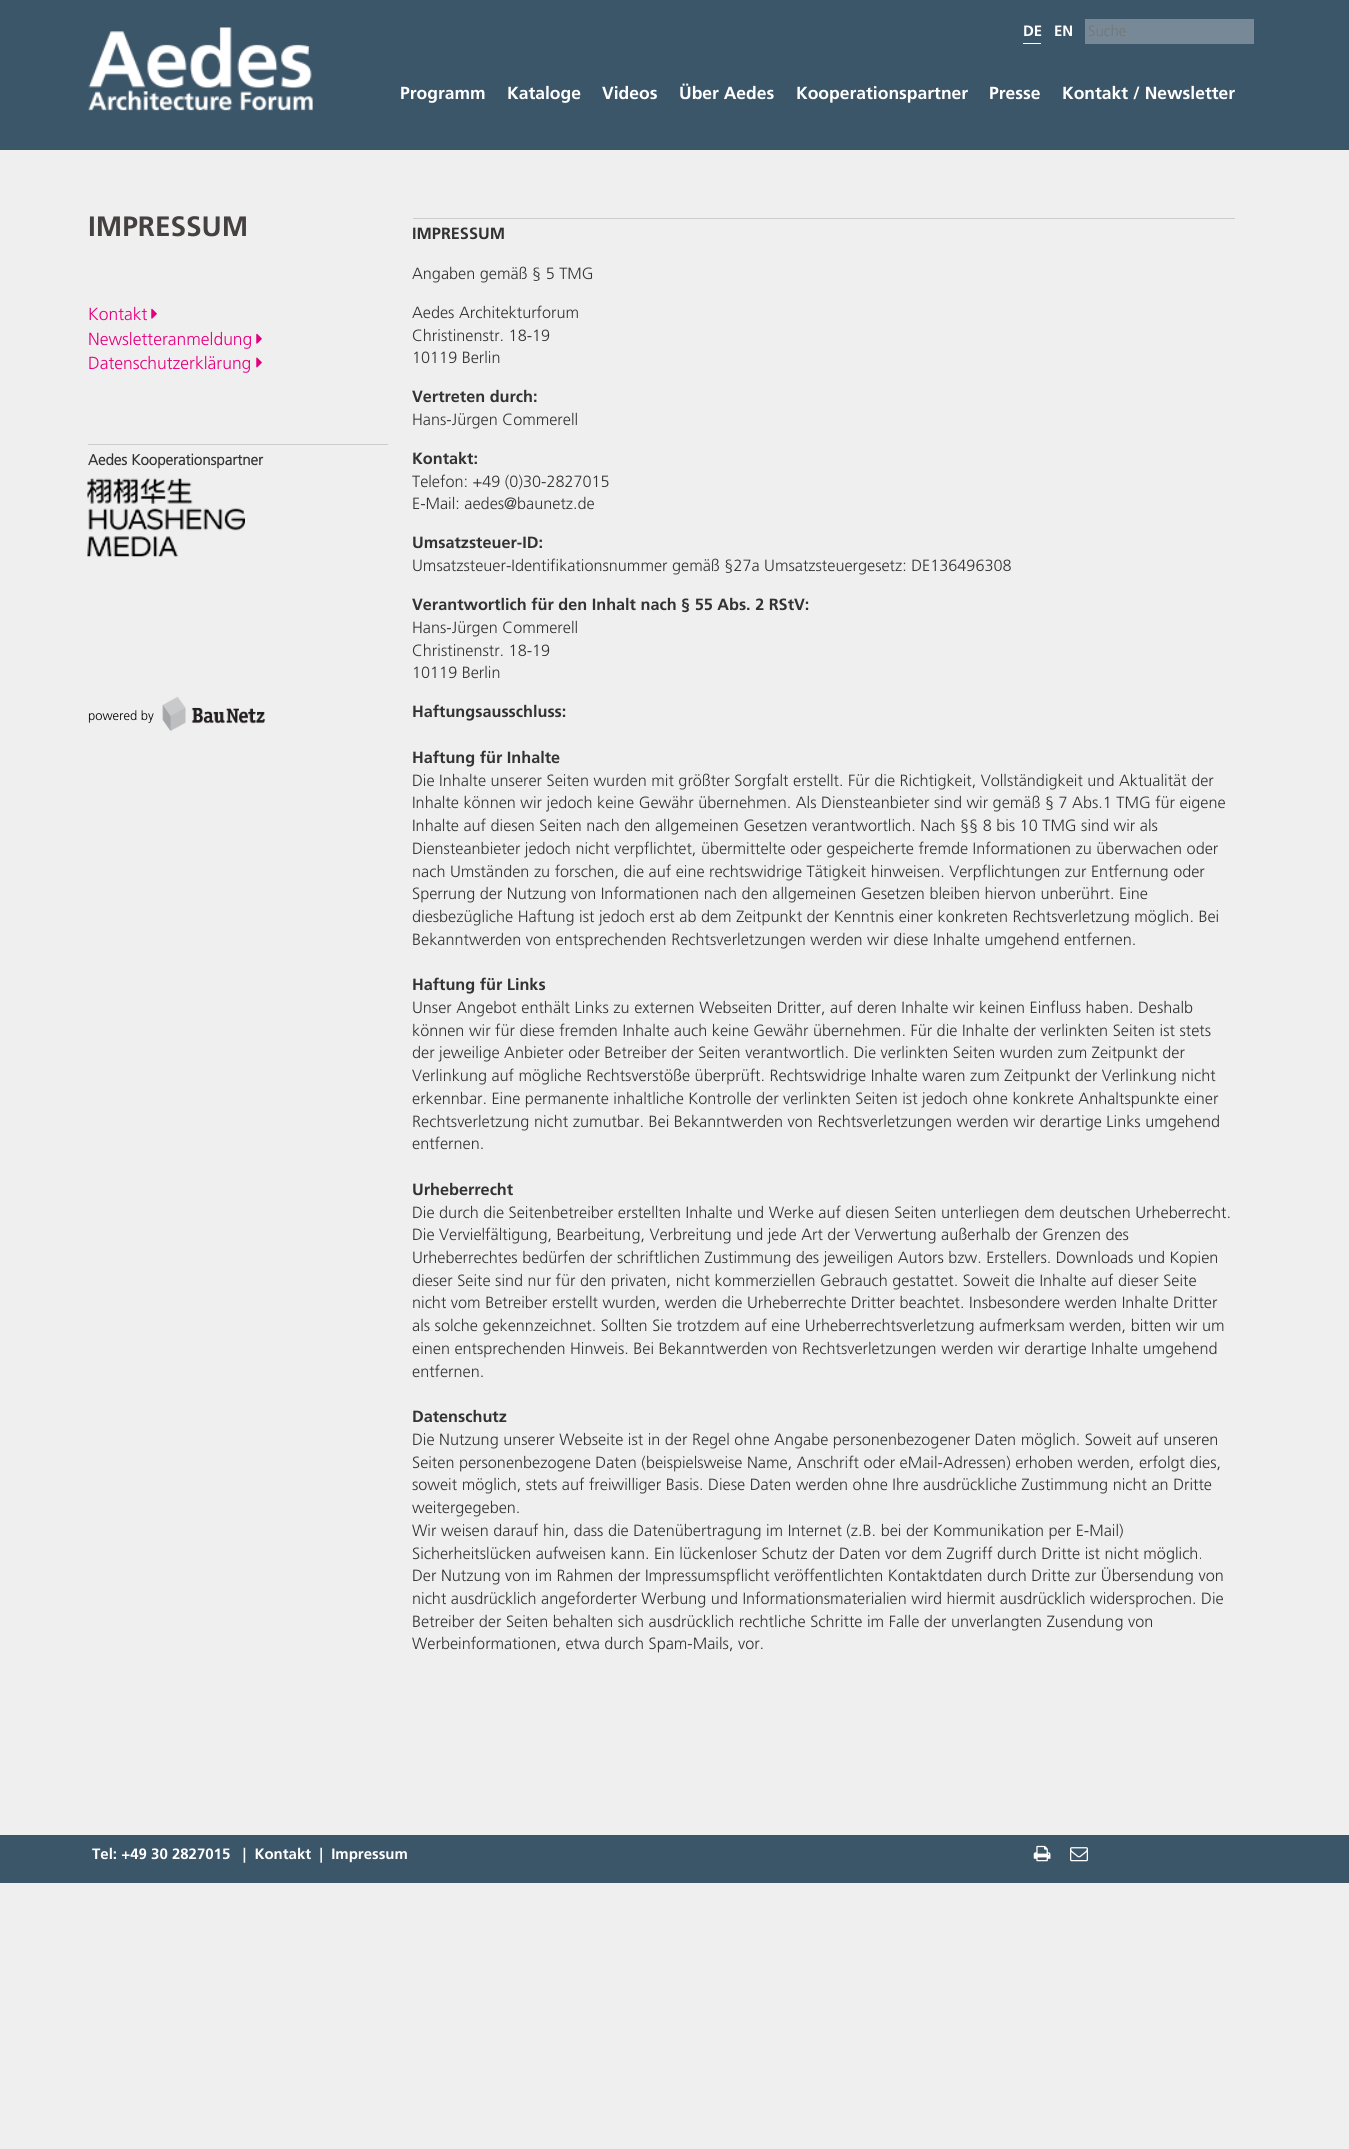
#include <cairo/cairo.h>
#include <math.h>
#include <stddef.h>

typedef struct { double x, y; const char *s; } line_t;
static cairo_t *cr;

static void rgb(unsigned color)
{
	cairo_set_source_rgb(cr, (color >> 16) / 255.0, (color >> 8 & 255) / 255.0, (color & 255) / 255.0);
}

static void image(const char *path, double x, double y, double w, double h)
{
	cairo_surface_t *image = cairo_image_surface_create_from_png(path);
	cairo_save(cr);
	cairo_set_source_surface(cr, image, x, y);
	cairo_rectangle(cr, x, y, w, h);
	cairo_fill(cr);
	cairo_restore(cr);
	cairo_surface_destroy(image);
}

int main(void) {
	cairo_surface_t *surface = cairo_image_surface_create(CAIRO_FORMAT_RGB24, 1349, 2149);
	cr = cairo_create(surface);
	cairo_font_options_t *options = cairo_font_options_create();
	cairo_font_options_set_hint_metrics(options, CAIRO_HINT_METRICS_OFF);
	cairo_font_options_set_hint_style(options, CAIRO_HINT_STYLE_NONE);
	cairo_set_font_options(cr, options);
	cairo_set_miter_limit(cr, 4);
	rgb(0xf0eff0);
	cairo_paint(cr);
	rgb(0x3c5669);
	cairo_rectangle(cr, 0, 0, 1349, 150);
	cairo_fill(cr);
	image("img/1.png", 88, 27, 225, 84);
	rgb(0xffffff);
	cairo_rectangle(cr, 1023, 43, 18, 1);
	cairo_fill(cr);
	rgb(0x778996);
	cairo_rectangle(cr, 1085, 19, 169, 25);
	cairo_fill(cr);
	image("img/2.png", 151, 308, 6, 11);
	image("img/2.png", 256, 333, 6, 11);
	image("img/3.png", 256, 357, 6, 11);
	rgb(0xcccccc);
	cairo_rectangle(cr, 88, 444, 300, 1);
	cairo_fill(cr);
	image("img/4.png", 87, 478, 158, 79);
	image("img/5.png", 162, 696, 104, 35);
	cairo_rectangle(cr, 413, 218, 822, 1);
	cairo_fill(cr);
	rgb(0x3c5669);
	cairo_rectangle(cr, 0, 1835, 1349, 48);
	cairo_fill(cr);
	image("img/6.png", 1033, 1845, 18, 17);
	image("img/7.png", 1070, 1847, 18, 15);
	cairo_select_font_face(cr, "Frutiger", CAIRO_FONT_SLANT_NORMAL, CAIRO_FONT_WEIGHT_BOLD);
	cairo_set_font_size(cr, 15);
	rgb(0xffffff);
	cairo_move_to(cr, 1023, 36);
	cairo_show_text(cr, "DE");
	cairo_move_to(cr, 1054, 36);
	cairo_show_text(cr, "EN");
	cairo_select_font_face(cr, "Frutiger Light", CAIRO_FONT_SLANT_NORMAL, CAIRO_FONT_WEIGHT_NORMAL);
	rgb(0x757575);
	cairo_move_to(cr, 1088, 36);
	cairo_show_text(cr, "Suche");
	cairo_select_font_face(cr, "Frutiger", CAIRO_FONT_SLANT_NORMAL, CAIRO_FONT_WEIGHT_BOLD);
	cairo_set_font_size(cr, 17.5);
	rgb(0xffffff);
	{
		static const line_t items[] = {
			{400, 99, "Programm"},
			{507, 99, "Kataloge"},
			{602, 99, "Videos"},
			{679, 99, "Über Aedes"},
			{796, 99, "Kooperationspartner"},
			{989, 99, "Presse"},
			{1062, 99, "Kontakt / Newsletter"},
		};
		for (size_t i = 0; i < sizeof items / sizeof *items; i++) {
			cairo_move_to(cr, items[i].x, items[i].y);
			cairo_show_text(cr, items[i].s);
		}
	}
	cairo_set_font_size(cr, 28);
	rgb(0x454140);
	cairo_move_to(cr, 88, 236);
	cairo_show_text(cr, "IMPRESSUM");
	cairo_select_font_face(cr, "Frutiger Light", CAIRO_FONT_SLANT_NORMAL, CAIRO_FONT_WEIGHT_NORMAL);
	cairo_set_font_size(cr, 17.5);
	rgb(0xe6007e);
	{
		static const line_t items[] = {
			{88, 320, "Kontakt"},
			{88, 345, "Newsletteranmeldung"},
			{88, 369, "Datenschutzerklärung"},
		};
		for (size_t i = 0; i < sizeof items / sizeof *items; i++) {
			cairo_move_to(cr, items[i].x, items[i].y);
			cairo_show_text(cr, items[i].s);
		}
	}
	cairo_select_font_face(cr, "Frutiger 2", CAIRO_FONT_SLANT_NORMAL, CAIRO_FONT_WEIGHT_BOLD);
	cairo_set_font_size(cr, 15);
	rgb(0x333333);
	cairo_move_to(cr, 88, 465);
	cairo_show_text(cr, "Aedes Kooperationspartner");
	cairo_select_font_face(cr, "Frutiger Light", CAIRO_FONT_SLANT_NORMAL, CAIRO_FONT_WEIGHT_NORMAL);
	cairo_set_font_size(cr, 13);
	rgb(0x000000);
	cairo_move_to(cr, 88, 720);
	cairo_show_text(cr, "powered by");
	cairo_select_font_face(cr, "Frutiger", CAIRO_FONT_SLANT_NORMAL, CAIRO_FONT_WEIGHT_BOLD);
	cairo_set_font_size(cr, 16.25);
	rgb(0x333333);
	cairo_move_to(cr, 412, 239);
	cairo_show_text(cr, "IMPRESSUM");
	cairo_select_font_face(cr, "Frutiger Light", CAIRO_FONT_SLANT_NORMAL, CAIRO_FONT_WEIGHT_NORMAL);
	{
		static const line_t items[] = {
			{412, 279, "Angaben gemäß § 5 TMG"},
			{412, 318, "Aedes Architekturforum"},
			{412, 341, "Christinenstr. 18-19"},
			{412, 363, "10119 Berlin"},
		};
		for (size_t i = 0; i < sizeof items / sizeof *items; i++) {
			cairo_move_to(cr, items[i].x, items[i].y);
			cairo_show_text(cr, items[i].s);
		}
	}
	cairo_select_font_face(cr, "Frutiger", CAIRO_FONT_SLANT_NORMAL, CAIRO_FONT_WEIGHT_BOLD);
	cairo_move_to(cr, 412, 402);
	cairo_show_text(cr, "Vertreten durch:");
	cairo_select_font_face(cr, "Frutiger Light", CAIRO_FONT_SLANT_NORMAL, CAIRO_FONT_WEIGHT_NORMAL);
	cairo_move_to(cr, 412, 425);
	cairo_show_text(cr, "Hans-Jürgen Commerell");
	cairo_select_font_face(cr, "Frutiger", CAIRO_FONT_SLANT_NORMAL, CAIRO_FONT_WEIGHT_BOLD);
	cairo_move_to(cr, 412, 464);
	cairo_show_text(cr, "Kontakt:");
	cairo_select_font_face(cr, "Frutiger Light", CAIRO_FONT_SLANT_NORMAL, CAIRO_FONT_WEIGHT_NORMAL);
	cairo_move_to(cr, 412, 487);
	cairo_show_text(cr, "Telefon: +49 (0)30-2827015");
	cairo_move_to(cr, 412, 509);
	cairo_show_text(cr, "E-Mail: aedes@baunetz.de");
	cairo_select_font_face(cr, "Frutiger", CAIRO_FONT_SLANT_NORMAL, CAIRO_FONT_WEIGHT_BOLD);
	cairo_move_to(cr, 412, 548);
	cairo_show_text(cr, "Umsatzsteuer-ID:");
	cairo_select_font_face(cr, "Frutiger Light", CAIRO_FONT_SLANT_NORMAL, CAIRO_FONT_WEIGHT_NORMAL);
	cairo_move_to(cr, 412, 571);
	cairo_show_text(cr, "Umsatzsteuer-Identifikationsnummer gemäß §27a Umsatzsteuergesetz: DE136496308");
	cairo_select_font_face(cr, "Frutiger", CAIRO_FONT_SLANT_NORMAL, CAIRO_FONT_WEIGHT_BOLD);
	cairo_move_to(cr, 412, 610);
	cairo_show_text(cr, "Verantwortlich für den Inhalt nach § 55 Abs. 2 RStV:");
	cairo_select_font_face(cr, "Frutiger Light", CAIRO_FONT_SLANT_NORMAL, CAIRO_FONT_WEIGHT_NORMAL);
	{
		static const line_t items[] = {
			{412, 633, "Hans-Jürgen Commerell"},
			{412, 656, "Christinenstr. 18-19"},
			{412, 678, "10119 Berlin"},
		};
		for (size_t i = 0; i < sizeof items / sizeof *items; i++) {
			cairo_move_to(cr, items[i].x, items[i].y);
			cairo_show_text(cr, items[i].s);
		}
	}
	cairo_select_font_face(cr, "Frutiger", CAIRO_FONT_SLANT_NORMAL, CAIRO_FONT_WEIGHT_BOLD);
	cairo_move_to(cr, 412, 717);
	cairo_show_text(cr, "Haftungsausschluss:");
	cairo_move_to(cr, 412, 763);
	cairo_show_text(cr, "Haftung für Inhalte");
	cairo_select_font_face(cr, "Frutiger Light", CAIRO_FONT_SLANT_NORMAL, CAIRO_FONT_WEIGHT_NORMAL);
	{
		static const line_t items[] = {
			{412, 786, "Die Inhalte unserer Seiten wurden mit größter Sorgfalt erstellt. Für die Richtigkeit, Vollständigkeit und Aktualität der"},
			{412, 808, "Inhalte können wir jedoch keine Gewähr übernehmen. Als Diensteanbieter sind wir gemäß § 7 Abs.1 TMG für eigene"},
			{412, 831, "Inhalte auf diesen Seiten nach den allgemeinen Gesetzen verantwortlich. Nach §§ 8 bis 10 TMG sind wir als"},
			{412, 854, "Diensteanbieter jedoch nicht verpflichtet, übermittelte oder gespeicherte fremde Informationen zu überwachen oder"},
			{412, 877, "nach Umständen zu forschen, die auf eine rechtswidrige Tätigkeit hinweisen. Verpflichtungen zur Entfernung oder"},
			{412, 899, "Sperrung der Nutzung von Informationen nach den allgemeinen Gesetzen bleiben hiervon unberührt. Eine"},
			{412, 922, "diesbezügliche Haftung ist jedoch erst ab dem Zeitpunkt der Kenntnis einer konkreten Rechtsverletzung möglich. Bei"},
			{412, 945, "Bekanntwerden von entsprechenden Rechtsverletzungen werden wir diese Inhalte umgehend entfernen."},
		};
		for (size_t i = 0; i < sizeof items / sizeof *items; i++) {
			cairo_move_to(cr, items[i].x, items[i].y);
			cairo_show_text(cr, items[i].s);
		}
	}
	cairo_select_font_face(cr, "Frutiger", CAIRO_FONT_SLANT_NORMAL, CAIRO_FONT_WEIGHT_BOLD);
	cairo_move_to(cr, 412, 990);
	cairo_show_text(cr, "Haftung für Links");
	cairo_select_font_face(cr, "Frutiger Light", CAIRO_FONT_SLANT_NORMAL, CAIRO_FONT_WEIGHT_NORMAL);
	{
		static const line_t items[] = {
			{412, 1013, "Unser Angebot enthält Links zu externen Webseiten Dritter, auf deren Inhalte wir keinen Einfluss haben. Deshalb"},
			{412, 1036, "können wir für diese fremden Inhalte auch keine Gewähr übernehmen. Für die Inhalte der verlinkten Seiten ist stets"},
			{412, 1058, "der jeweilige Anbieter oder Betreiber der Seiten verantwortlich. Die verlinkten Seiten wurden zum Zeitpunkt der"},
			{412, 1081, "Verlinkung auf mögliche Rechtsverstöße überprüft. Rechtswidrige Inhalte waren zum Zeitpunkt der Verlinkung nicht"},
			{412, 1104, "erkennbar. Eine permanente inhaltliche Kontrolle der verlinkten Seiten ist jedoch ohne konkrete Anhaltspunkte einer"},
			{412, 1127, "Rechtsverletzung nicht zumutbar. Bei Bekanntwerden von Rechtsverletzungen werden wir derartige Links umgehend"},
			{412, 1149, "entfernen."},
		};
		for (size_t i = 0; i < sizeof items / sizeof *items; i++) {
			cairo_move_to(cr, items[i].x, items[i].y);
			cairo_show_text(cr, items[i].s);
		}
	}
	cairo_select_font_face(cr, "Frutiger", CAIRO_FONT_SLANT_NORMAL, CAIRO_FONT_WEIGHT_BOLD);
	cairo_move_to(cr, 412, 1195);
	cairo_show_text(cr, "Urheberrecht");
	cairo_select_font_face(cr, "Frutiger Light", CAIRO_FONT_SLANT_NORMAL, CAIRO_FONT_WEIGHT_NORMAL);
	{
		static const line_t items[] = {
			{412, 1218, "Die durch die Seitenbetreiber erstellten Inhalte und Werke auf diesen Seiten unterliegen dem deutschen Urheberrecht."},
			{412, 1240, "Die Vervielfältigung, Bearbeitung, Verbreitung und jede Art der Verwertung außerhalb der Grenzen des"},
			{412, 1263, "Urheberrechtes bedürfen der schriftlichen Zustimmung des jeweiligen Autors bzw. Erstellers. Downloads und Kopien"},
			{412, 1286, "dieser Seite sind nur für den privaten, nicht kommerziellen Gebrauch gestattet. Soweit die Inhalte auf dieser Seite"},
			{412, 1308, "nicht vom Betreiber erstellt wurden, werden die Urheberrechte Dritter beachtet. Insbesondere werden Inhalte Dritter"},
			{412, 1331, "als solche gekennzeichnet. Sollten Sie trotzdem auf eine Urheberrechtsverletzung aufmerksam werden, bitten wir um"},
			{412, 1354, "einen entsprechenden Hinweis. Bei Bekanntwerden von Rechtsverletzungen werden wir derartige Inhalte umgehend"},
			{412, 1377, "entfernen."},
		};
		for (size_t i = 0; i < sizeof items / sizeof *items; i++) {
			cairo_move_to(cr, items[i].x, items[i].y);
			cairo_show_text(cr, items[i].s);
		}
	}
	cairo_select_font_face(cr, "Frutiger", CAIRO_FONT_SLANT_NORMAL, CAIRO_FONT_WEIGHT_BOLD);
	cairo_move_to(cr, 412, 1422);
	cairo_show_text(cr, "Datenschutz");
	cairo_select_font_face(cr, "Frutiger Light", CAIRO_FONT_SLANT_NORMAL, CAIRO_FONT_WEIGHT_NORMAL);
	{
		static const line_t items[] = {
			{412, 1445, "Die Nutzung unserer Webseite ist in der Regel ohne Angabe personenbezogener Daten möglich. Soweit auf unseren"},
			{412, 1468, "Seiten personenbezogene Daten (beispielsweise Name, Anschrift oder eMail-Adressen) erhoben werden, erfolgt dies,"},
			{412, 1490, "soweit möglich, stets auf freiwilliger Basis. Diese Daten werden ohne Ihre ausdrückliche Zustimmung nicht an Dritte"},
			{412, 1513, "weitergegeben."},
			{412, 1536, "Wir weisen darauf hin, dass die Datenübertragung im Internet (z.B. bei der Kommunikation per E-Mail)"},
			{412, 1559, "Sicherheitslücken aufweisen kann. Ein lückenloser Schutz der Daten vor dem Zugriff durch Dritte ist nicht möglich."},
			{412, 1581, "Der Nutzung von im Rahmen der Impressumspflicht veröffentlichten Kontaktdaten durch Dritte zur Übersendung von"},
			{412, 1604, "nicht ausdrücklich angeforderter Werbung und Informationsmaterialien wird hiermit ausdrücklich widersprochen. Die"},
			{412, 1627, "Betreiber der Seiten behalten sich ausdrücklich rechtliche Schritte im Falle der unverlangten Zusendung von"},
			{412, 1649, "Werbeinformationen, etwa durch Spam-Mails, vor."},
		};
		for (size_t i = 0; i < sizeof items / sizeof *items; i++) {
			cairo_move_to(cr, items[i].x, items[i].y);
			cairo_show_text(cr, items[i].s);
		}
	}
	cairo_select_font_face(cr, "Frutiger", CAIRO_FONT_SLANT_NORMAL, CAIRO_FONT_WEIGHT_BOLD);
	cairo_set_font_size(cr, 15);
	rgb(0xffffff);
	cairo_move_to(cr, 92, 1859);
	cairo_show_text(cr, "Tel: +49 30 2827015   |  Kontakt  |  Impressum");
	cairo_surface_write_to_png(surface, "page.png");
	cairo_font_options_destroy(options);
	cairo_destroy(cr);
	cairo_surface_destroy(surface);
	return 0;
}
